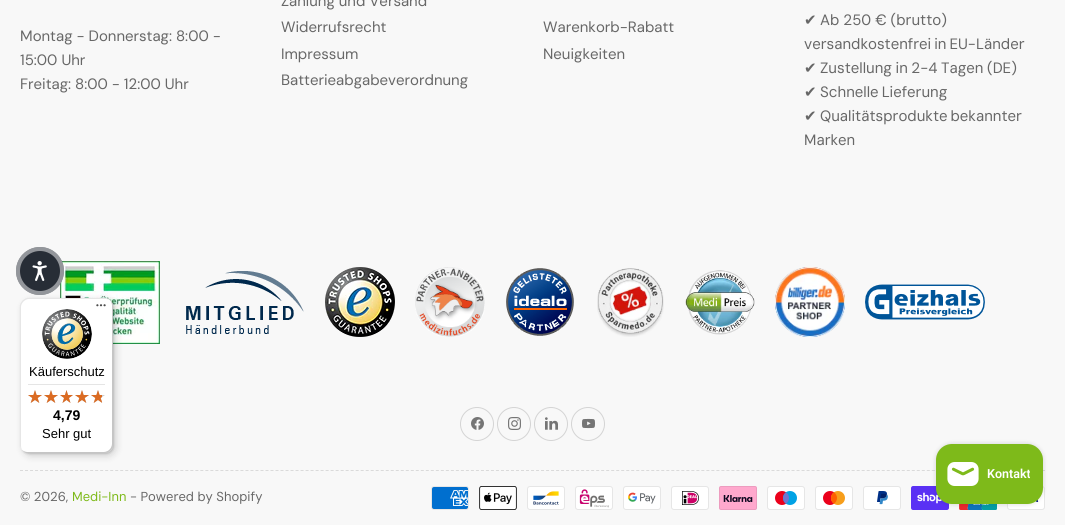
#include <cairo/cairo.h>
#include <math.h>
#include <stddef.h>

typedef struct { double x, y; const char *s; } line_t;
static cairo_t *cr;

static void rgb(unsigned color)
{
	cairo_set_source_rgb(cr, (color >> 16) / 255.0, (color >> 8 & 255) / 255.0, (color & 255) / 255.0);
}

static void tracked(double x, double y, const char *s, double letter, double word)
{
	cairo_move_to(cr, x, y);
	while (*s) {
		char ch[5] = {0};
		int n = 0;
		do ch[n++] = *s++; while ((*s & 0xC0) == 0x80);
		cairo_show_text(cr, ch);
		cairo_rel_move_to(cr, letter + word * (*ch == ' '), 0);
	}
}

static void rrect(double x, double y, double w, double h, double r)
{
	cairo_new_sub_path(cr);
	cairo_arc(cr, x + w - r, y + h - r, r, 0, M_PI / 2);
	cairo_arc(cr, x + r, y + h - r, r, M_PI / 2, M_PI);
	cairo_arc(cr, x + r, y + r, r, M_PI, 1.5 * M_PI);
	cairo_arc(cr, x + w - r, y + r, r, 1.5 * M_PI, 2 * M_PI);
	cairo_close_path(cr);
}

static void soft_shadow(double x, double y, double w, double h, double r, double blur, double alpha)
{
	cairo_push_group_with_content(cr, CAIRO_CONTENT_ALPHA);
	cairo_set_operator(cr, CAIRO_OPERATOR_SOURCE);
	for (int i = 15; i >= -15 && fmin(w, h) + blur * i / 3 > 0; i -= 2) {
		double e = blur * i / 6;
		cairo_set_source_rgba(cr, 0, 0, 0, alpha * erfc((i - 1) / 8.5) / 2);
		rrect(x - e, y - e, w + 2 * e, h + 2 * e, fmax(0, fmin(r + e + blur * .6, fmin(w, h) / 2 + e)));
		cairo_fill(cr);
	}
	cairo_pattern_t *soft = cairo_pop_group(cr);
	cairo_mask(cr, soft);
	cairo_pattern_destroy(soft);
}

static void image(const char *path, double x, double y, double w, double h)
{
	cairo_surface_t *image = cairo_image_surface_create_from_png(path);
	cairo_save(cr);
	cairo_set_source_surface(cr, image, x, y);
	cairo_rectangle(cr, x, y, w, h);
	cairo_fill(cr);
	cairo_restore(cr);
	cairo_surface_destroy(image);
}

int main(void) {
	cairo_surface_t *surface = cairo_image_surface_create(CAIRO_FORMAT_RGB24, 1065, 525);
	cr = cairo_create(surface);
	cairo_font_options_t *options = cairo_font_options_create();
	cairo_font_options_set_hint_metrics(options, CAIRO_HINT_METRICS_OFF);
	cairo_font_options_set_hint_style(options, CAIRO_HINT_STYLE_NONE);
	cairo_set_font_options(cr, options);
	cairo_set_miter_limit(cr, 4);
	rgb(0xf8f8f8);
	cairo_paint(cr);
	image("img/1.png", 60, 261, 100, 83);
	image("img/2.png", 186, 271, 118, 63);
	image("img/3.png", 325, 267, 70, 70);
	image("img/4.png", 415, 267, 70, 70);
	image("img/5.png", 506, 268, 68, 68);
	image("img/6.png", 597, 268, 67, 69);
	image("img/7.png", 685, 270, 70, 65);
	image("img/8.png", 775, 267, 70, 70);
	image("img/9.png", 865, 284, 120, 36);
	cairo_arc(cr, 477, 424, 16.5, 0, 2 * M_PI);
	rgb(0xd4d4d4);
	cairo_set_line_width(cr, 1);
	cairo_stroke(cr);
	image("img/10.png", 471, 417, 13, 13);
	cairo_arc(cr, 514, 424, 16.5, 0, 2 * M_PI);
	cairo_stroke(cr);
	image("img/11.png", 508, 417, 13, 13);
	cairo_arc(cr, 551, 424, 16.5, 0, 2 * M_PI);
	cairo_stroke(cr);
	image("img/12.png", 545, 417, 13, 13);
	cairo_arc(cr, 588, 424, 16.5, 0, 2 * M_PI);
	cairo_stroke(cr);
	image("img/13.png", 582, 418, 13, 11);
	cairo_new_path(cr);
	cairo_move_to(cr, 20, 470.5);
	cairo_line_to(cr, 1045, 470.5);
	rgb(0xdadada);
	cairo_set_dash(cr, (double[]){3, 2.01}, 2, 0);
	cairo_stroke(cr);
	image("img/14.png", 431, 486, 38, 24);
	image("img/15.png", 479, 486, 38, 24);
	image("img/16.png", 527, 486, 38, 24);
	image("img/17.png", 575, 486, 38, 24);
	image("img/18.png", 623, 486, 38, 24);
	image("img/19.png", 671, 486, 38, 24);
	image("img/20.png", 719, 486, 38, 24);
	image("img/21.png", 767, 486, 38, 24);
	image("img/22.png", 815, 486, 38, 24);
	image("img/23.png", 863, 486, 38, 24);
	image("img/24.png", 911, 486, 38, 24);
	image("img/25.png", 959, 504, 38, 6);
	image("img/26.png", 1007, 486, 38, 24);
	rgb(0x272d36);
	cairo_arc(cr, 40, 271, 24, 0, 2 * M_PI);
	cairo_fill(cr);
	cairo_arc(cr, 40, 271, 22, 0, 2 * M_PI);
	cairo_set_source_rgba(cr, 1, 1, 1, 0.5);
	cairo_set_line_width(cr, 4);
	cairo_set_dash(cr, NULL, 0, 0);
	cairo_stroke(cr);
	image("img/27.png", 32, 261, 15, 20);
	rgb(0x000000);
	soft_shadow(23, 301, 93, 155, 8, 4, 0.15);
	soft_shadow(21, 299, 93, 155, 8, 1, 0.15);
	rgb(0xffffff);
	rrect(20, 298, 93, 155, 8);
	cairo_fill(cr);
	cairo_set_source_rgba(cr, 0, 0, 0, 0.1);
	cairo_new_path(cr);
	cairo_move_to(cr, 29, 299);
	cairo_line_to(cr, 106, 299);
	cairo_curve_to(cr, 108, 299, 110, 300, 112, 302);
	cairo_curve_to(cr, 110, 300, 108, 298, 105, 298);
	cairo_line_to(cr, 28, 298);
	cairo_curve_to(cr, 24, 298, 20, 302, 20, 306);
	cairo_line_to(cr, 20, 445);
	cairo_curve_to(cr, 20, 448, 22, 450, 24, 452);
	cairo_curve_to(cr, 22, 450, 21, 448, 21, 446);
	cairo_line_to(cr, 21, 307);
	cairo_curve_to(cr, 21, 303, 25, 299, 29, 299);
	cairo_close_path(cr);
	cairo_fill(cr);
	cairo_set_source_rgba(cr, 0, 0, 0, 0.2);
	cairo_new_path(cr);
	cairo_move_to(cr, 21, 449);
	cairo_curve_to(cr, 23, 451, 25, 453, 28, 453);
	cairo_line_to(cr, 105, 453);
	cairo_curve_to(cr, 109, 453, 113, 449, 113, 445);
	cairo_line_to(cr, 113, 306);
	cairo_curve_to(cr, 113, 303, 111, 301, 109, 299);
	cairo_curve_to(cr, 111, 301, 112, 303, 112, 305);
	cairo_line_to(cr, 112, 444);
	cairo_curve_to(cr, 112, 448, 108, 452, 104, 452);
	cairo_line_to(cr, 27, 452);
	cairo_curve_to(cr, 25, 452, 23, 451, 21, 449);
	cairo_close_path(cr);
	cairo_fill(cr);
	cairo_set_source_rgba(cr, 0.196, 0.196, 0.196, 0.2);
	cairo_new_path(cr);
	cairo_move_to(cr, 22, 450);
	cairo_curve_to(cr, 23, 452, 26, 453, 28, 453);
	cairo_line_to(cr, 105, 453);
	cairo_curve_to(cr, 109, 453, 113, 449, 113, 445);
	cairo_line_to(cr, 113, 306);
	cairo_curve_to(cr, 113, 304, 112, 301, 110, 300);
	cairo_curve_to(cr, 111, 301, 112, 303, 112, 305);
	cairo_line_to(cr, 112, 444);
	cairo_curve_to(cr, 112, 449, 109, 452, 104, 452);
	cairo_line_to(cr, 27, 452);
	cairo_curve_to(cr, 25, 452, 23, 451, 22, 450);
	cairo_close_path(cr);
	cairo_fill(cr);
	cairo_set_source_rgba(cr, 1, 1, 1, 0.3);
	cairo_new_path(cr);
	cairo_move_to(cr, 112, 306);
	cairo_curve_to(cr, 112, 301, 109, 298, 104, 298);
	cairo_line_to(cr, 105, 298);
	cairo_curve_to(cr, 109, 298, 113, 302, 113, 306);
	cairo_line_to(cr, 113, 445);
	cairo_curve_to(cr, 113, 449, 109, 453, 105, 453);
	cairo_line_to(cr, 28, 453);
	cairo_curve_to(cr, 24, 453, 20, 449, 20, 445);
	cairo_line_to(cr, 20, 444);
	cairo_curve_to(cr, 20, 449, 23, 452, 28, 452);
	cairo_line_to(cr, 104, 452);
	cairo_curve_to(cr, 109, 452, 112, 449, 112, 444);
	cairo_close_path(cr);
	cairo_fill(cr);
	image("img/28.png", 96, 304, 10, 3);
	image("img/29.png", 42, 309, 50, 50);
	rgb(0xe5e5e5);
	cairo_rectangle(cr, 28, 384, 77, 1);
	cairo_fill(cr);
	image("img/30.png", 28, 390, 14, 13);
	image("img/30.png", 44, 390, 14, 13);
	image("img/31.png", 60, 390, 13, 13);
	image("img/30.png", 75, 390, 14, 13);
	image("img/30.png", 91, 390, 14, 13);
	image("img/32.png", 28, 390, 14, 13);
	image("img/32.png", 44, 390, 14, 13);
	image("img/33.png", 60, 390, 13, 13);
	image("img/32.png", 75, 390, 14, 13);
	image("img/34.png", 91, 390, 11, 13);
	rgb(0x000000);
	soft_shadow(936, 444, 107, 60, 16, 2.5, 0.15);
	rgb(0x7eba1a);
	rrect(936, 444, 107, 60, 16);
	cairo_fill(cr);
	image("img/35.png", 947, 462, 32, 24);
	cairo_select_font_face(cr, "DM Sans", CAIRO_FONT_SLANT_NORMAL, CAIRO_FONT_WEIGHT_NORMAL);
	cairo_set_font_size(cr, 15);
	rgb(0x676767);
	{
		static const line_t items[] = {
			{20, 41, "Montag - Donnerstag: 8:00 -"},
			{20, 65, "15:00 Uhr"},
			{20, 89, "Freitag: 8:00 - 12:00 Uhr"},
			{281, 6, "Zahlung und Versand"},
			{281, 32, "Widerrufsrecht"},
			{281, 59, "Impressum"},
			{281, 85, "Batterieabgabeverordnung"},
			{543, 32, "Warenkorb-Rabatt"},
			{543, 59, "Neuigkeiten"},
		};
		for (size_t i = 0; i < sizeof items / sizeof *items; i++) {
			cairo_move_to(cr, items[i].x, items[i].y);
			cairo_show_text(cr, items[i].s);
		}
	}
	cairo_select_font_face(cr, "DejaVu Sans", CAIRO_FONT_SLANT_NORMAL, CAIRO_FONT_WEIGHT_NORMAL);
	cairo_move_to(cr, 804, 25);
	cairo_show_text(cr, "✔");
	cairo_select_font_face(cr, "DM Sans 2", CAIRO_FONT_SLANT_NORMAL, CAIRO_FONT_WEIGHT_NORMAL);
	cairo_move_to(cr, 820, 25);
	cairo_show_text(cr, "Ab 250 € (brutto)");
	tracked(804, 49, "versandkostenfrei in EU-Länder", 0, -1);
	cairo_select_font_face(cr, "DejaVu Sans", CAIRO_FONT_SLANT_NORMAL, CAIRO_FONT_WEIGHT_NORMAL);
	cairo_move_to(cr, 804, 73);
	cairo_show_text(cr, "✔");
	cairo_select_font_face(cr, "DM Sans 2", CAIRO_FONT_SLANT_NORMAL, CAIRO_FONT_WEIGHT_NORMAL);
	tracked(820, 73, "Zustellung in 2-4 Tagen (DE)", 0, -0.5);
	cairo_select_font_face(cr, "DejaVu Sans", CAIRO_FONT_SLANT_NORMAL, CAIRO_FONT_WEIGHT_NORMAL);
	cairo_move_to(cr, 804, 97);
	cairo_show_text(cr, "✔");
	cairo_select_font_face(cr, "DM Sans 2", CAIRO_FONT_SLANT_NORMAL, CAIRO_FONT_WEIGHT_NORMAL);
	tracked(820, 97, "Schnelle Lieferung", 0, -1);
	cairo_select_font_face(cr, "DejaVu Sans", CAIRO_FONT_SLANT_NORMAL, CAIRO_FONT_WEIGHT_NORMAL);
	cairo_move_to(cr, 804, 121);
	cairo_show_text(cr, "✔");
	cairo_select_font_face(cr, "DM Sans 2", CAIRO_FONT_SLANT_NORMAL, CAIRO_FONT_WEIGHT_NORMAL);
	tracked(820, 121, "Qualitätsprodukte bekannter", 0, -1);
	cairo_move_to(cr, 804, 145);
	cairo_show_text(cr, "Marken");
	cairo_set_font_size(cr, 13);
	cairo_move_to(cr, 20, 501);
	cairo_show_text(cr, "© 2026,");
	rgb(0x7eba1a);
	cairo_move_to(cr, 72, 501);
	cairo_show_text(cr, "Medi-Inn");
	rgb(0x676767);
	cairo_move_to(cr, 130, 501);
	cairo_show_text(cr, "- Powered by Shopify");
	cairo_select_font_face(cr, "Liberation Sans", CAIRO_FONT_SLANT_NORMAL, CAIRO_FONT_WEIGHT_NORMAL);
	rgb(0x000000);
	cairo_move_to(cr, 29, 376);
	cairo_show_text(cr, "Käuferschutz");
	cairo_select_font_face(cr, "Liberation Sans", CAIRO_FONT_SLANT_NORMAL, CAIRO_FONT_WEIGHT_BOLD);
	cairo_set_font_size(cr, 14);
	cairo_move_to(cr, 53, 420);
	cairo_show_text(cr, "4,79");
	cairo_select_font_face(cr, "Liberation Sans", CAIRO_FONT_SLANT_NORMAL, CAIRO_FONT_WEIGHT_NORMAL);
	cairo_set_font_size(cr, 13);
	cairo_move_to(cr, 42, 438);
	cairo_show_text(cr, "Sehr gut");
	cairo_select_font_face(cr, "Roboto SemiBold", CAIRO_FONT_SLANT_NORMAL, CAIRO_FONT_WEIGHT_NORMAL);
	cairo_set_font_size(cr, 12.5);
	rgb(0xffffff);
	cairo_move_to(cr, 987, 478);
	cairo_show_text(cr, "Kontakt");
	cairo_surface_write_to_png(surface, "page.png");
	cairo_font_options_destroy(options);
	cairo_destroy(cr);
	cairo_surface_destroy(surface);
	return 0;
}
